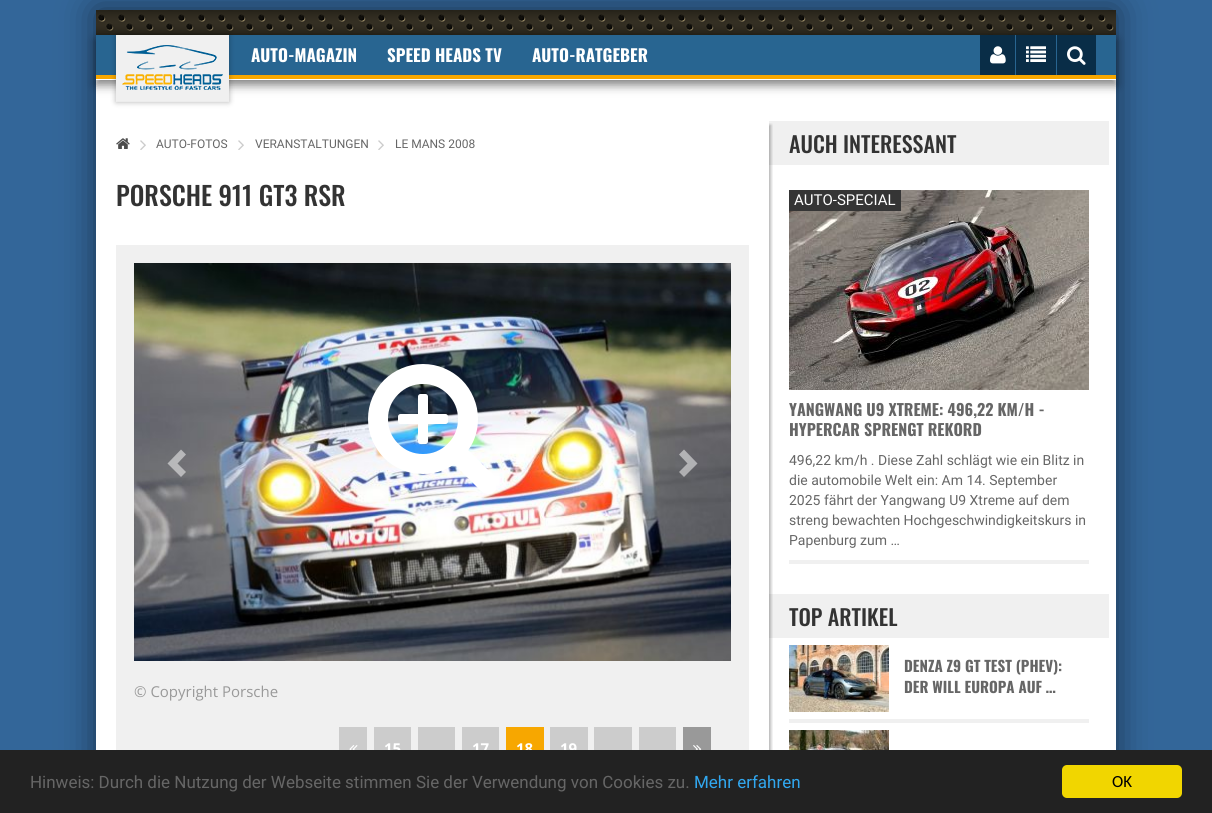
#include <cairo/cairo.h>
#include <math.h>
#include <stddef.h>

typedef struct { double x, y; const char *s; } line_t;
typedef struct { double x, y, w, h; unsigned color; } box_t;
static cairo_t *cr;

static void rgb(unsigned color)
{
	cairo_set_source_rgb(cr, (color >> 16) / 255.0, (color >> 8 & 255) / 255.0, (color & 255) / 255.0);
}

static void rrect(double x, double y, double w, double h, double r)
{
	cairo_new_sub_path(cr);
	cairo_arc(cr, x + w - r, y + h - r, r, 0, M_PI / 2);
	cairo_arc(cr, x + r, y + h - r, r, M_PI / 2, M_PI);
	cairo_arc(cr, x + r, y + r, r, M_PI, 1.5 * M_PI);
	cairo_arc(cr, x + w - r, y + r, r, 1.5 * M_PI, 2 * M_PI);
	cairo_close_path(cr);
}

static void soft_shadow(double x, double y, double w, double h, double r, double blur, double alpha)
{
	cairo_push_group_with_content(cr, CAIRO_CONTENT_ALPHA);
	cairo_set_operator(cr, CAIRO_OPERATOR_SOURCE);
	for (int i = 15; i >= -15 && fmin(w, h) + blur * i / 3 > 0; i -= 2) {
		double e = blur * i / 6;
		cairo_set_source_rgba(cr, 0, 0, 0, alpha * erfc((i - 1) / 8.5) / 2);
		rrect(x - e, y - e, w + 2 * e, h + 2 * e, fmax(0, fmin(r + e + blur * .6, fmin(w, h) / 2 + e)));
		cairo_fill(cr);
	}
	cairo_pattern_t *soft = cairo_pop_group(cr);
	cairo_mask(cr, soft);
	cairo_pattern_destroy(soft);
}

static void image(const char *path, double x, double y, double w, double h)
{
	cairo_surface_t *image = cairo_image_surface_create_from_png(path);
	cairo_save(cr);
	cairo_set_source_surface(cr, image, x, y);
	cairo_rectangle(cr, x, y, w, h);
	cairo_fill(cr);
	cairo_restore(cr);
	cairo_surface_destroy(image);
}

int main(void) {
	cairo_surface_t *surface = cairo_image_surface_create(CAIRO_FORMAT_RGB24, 1212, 813);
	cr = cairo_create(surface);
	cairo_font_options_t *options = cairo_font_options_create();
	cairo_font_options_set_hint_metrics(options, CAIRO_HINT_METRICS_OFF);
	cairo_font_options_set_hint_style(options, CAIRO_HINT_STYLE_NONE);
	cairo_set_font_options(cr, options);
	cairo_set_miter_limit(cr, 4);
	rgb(0x336699);
	cairo_paint(cr);
	rgb(0x000000);
	soft_shadow(96, 10, 1020, 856, 0, 17.5, 0.5);
	image("img/1.png", 96, 10, 1020, 25);
	rgb(0xffffff);
	cairo_rectangle(cr, 96, 80, 1020, 670);
	cairo_fill(cr);
	rgb(0x000000);
	soft_shadow(96, 40, 1020, 45, 0, 5, 0.5);
	{
		static const box_t items[] = {
			{96, 35, 1020, 40, 0x286591},
			{96, 75, 1020, 4, 0xf7a700},
			{96, 79, 1020, 1, 0xffffff},
		};
		for (size_t i = 0; i < sizeof items / sizeof *items; i++) {
			rgb(items[i].color);
			cairo_rectangle(cr, items[i].x, items[i].y, items[i].w, items[i].h);
			cairo_fill(cr);
		}
	}
	rgb(0x000000);
	soft_shadow(116, 35, 113, 67, 0, 3, 0.29);
	image("img/2.png", 116, 35, 113, 67);
	rgb(0x092d47);
	cairo_rectangle(cr, 980, 35, 35, 40);
	cairo_fill(cr);
	image("img/3.png", 990, 46, 16, 18);
	cairo_rectangle(cr, 1016, 35, 40, 40);
	cairo_fill(cr);
	image("img/4.png", 1026, 46, 20, 16);
	cairo_rectangle(cr, 1057, 35, 39, 40);
	cairo_fill(cr);
	image("img/5.png", 1067, 46, 19, 19);
	rgb(0xf0f0f0);
	cairo_rectangle(cr, 769, 121, 340, 44);
	cairo_fill(cr);
	cairo_rectangle(cr, 769, 594, 340, 44);
	cairo_fill(cr);
	cairo_save(cr);
	cairo_rectangle(cr, 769, 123, 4, 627);
	cairo_clip(cr);
	rgb(0x080808);
	soft_shadow(106, 125, 665, 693, 0, 1.5, 0.3);
	cairo_restore(cr);
	image("img/6.png", 116, 138, 14, 11);
	image("img/7.png", 140, 140, 6, 10);
	image("img/7.png", 238, 140, 6, 10);
	image("img/7.png", 378, 140, 6, 10);
	cairo_rectangle(cr, 116, 245, 633, 505);
	cairo_fill(cr);
	image("img/8.png", 134, 263, 597, 398);
	image("img/9.png", 368, 364, 128, 130);
	cairo_set_source_rgba(cr, 1, 1, 1, 0.5);
	cairo_new_path(cr);
	cairo_move_to(cr, 186, 454.5);
	cairo_line_to(cr, 177.5, 463.5);
	cairo_line_to(cr, 186, 472);
	cairo_line_to(cr, 181, 477);
	cairo_line_to(cr, 167.5, 463.5);
	cairo_line_to(cr, 181, 449.5);
	cairo_close_path(cr);
	cairo_fill(cr);
	cairo_new_path(cr);
	cairo_move_to(cr, 697.5, 463.5);
	cairo_line_to(cr, 684, 477);
	cairo_line_to(cr, 679, 472);
	cairo_line_to(cr, 687.5, 463.5);
	cairo_line_to(cr, 679, 454.5);
	cairo_line_to(cr, 684, 449.5);
	cairo_close_path(cr);
	cairo_fill(cr);
	rgb(0xcccccc);
	cairo_rectangle(cr, 339, 727, 28, 23);
	cairo_fill(cr);
	image("img/10.png", 349, 745, 9, 5);
	{
		static const box_t items[] = {
			{374, 727, 37, 23, 0xcccccc},
			{418, 727, 37, 23, 0xcccccc},
			{462, 727, 37, 23, 0xcccccc},
			{506, 727, 38, 23, 0xf7a700},
			{550, 727, 38, 23, 0xcccccc},
			{594, 727, 38, 23, 0xcccccc},
			{639, 727, 37, 23, 0xcccccc},
			{683, 727, 28, 23, 0x999999},
		};
		for (size_t i = 0; i < sizeof items / sizeof *items; i++) {
			rgb(items[i].color);
			cairo_rectangle(cr, items[i].x, items[i].y, items[i].w, items[i].h);
			cairo_fill(cr);
		}
	}
	image("img/11.png", 693, 745, 9, 5);
	rgb(0xf0f0f0);
	cairo_rectangle(cr, 789, 560, 300, 4);
	cairo_fill(cr);
	image("img/12.png", 789, 190, 300, 200);
	rgb(0x353535);
	cairo_rectangle(cr, 789, 190, 112, 21);
	cairo_fill(cr);
	rgb(0xf0f0f0);
	cairo_rectangle(cr, 789, 719, 300, 4);
	cairo_fill(cr);
	image("img/13.png", 789, 645, 100, 67);
	image("img/14.png", 789, 730, 100, 20);
	cairo_select_font_face(cr, "Oswald", CAIRO_FONT_SLANT_NORMAL, CAIRO_FONT_WEIGHT_BOLD);
	cairo_set_font_size(cr, 17);
	rgb(0xffffff);
	{
		static const line_t items[] = {
			{251, 62, "AUTO-MAGAZIN"},
			{387, 62, "SPEED HEADS TV"},
			{532, 62, "AUTO-RATGEBER"},
		};
		for (size_t i = 0; i < sizeof items / sizeof *items; i++) {
			cairo_move_to(cr, items[i].x, items[i].y);
			cairo_show_text(cr, items[i].s);
		}
	}
	cairo_select_font_face(cr, "Roboto", CAIRO_FONT_SLANT_NORMAL, CAIRO_FONT_WEIGHT_NORMAL);
	cairo_set_font_size(cr, 12);
	rgb(0x666666);
	{
		static const line_t items[] = {
			{156, 148, "AUTO-FOTOS"},
			{255, 148, "VERANSTALTUNGEN"},
			{395, 148, "LE MANS 2008"},
		};
		for (size_t i = 0; i < sizeof items / sizeof *items; i++) {
			cairo_move_to(cr, items[i].x, items[i].y);
			cairo_show_text(cr, items[i].s);
		}
	}
	cairo_select_font_face(cr, "Oswald Medium", CAIRO_FONT_SLANT_NORMAL, CAIRO_FONT_WEIGHT_NORMAL);
	cairo_set_font_size(cr, 26);
	rgb(0x333333);
	cairo_move_to(cr, 116, 206);
	cairo_show_text(cr, "PORSCHE 911 GT3 RSR");
	cairo_select_font_face(cr, "Open Sans", CAIRO_FONT_SLANT_NORMAL, CAIRO_FONT_WEIGHT_NORMAL);
	cairo_set_font_size(cr, 15);
	rgb(0x999999);
	cairo_move_to(cr, 134, 697);
	cairo_show_text(cr, "© Copyright Porsche");
	cairo_select_font_face(cr, "Open Sans", CAIRO_FONT_SLANT_NORMAL, CAIRO_FONT_WEIGHT_BOLD);
	rgb(0xffffff);
	{
		static const line_t items[] = {
			{384, 754, "15"},
			{472, 754, "17"},
			{516, 754, "18"},
			{560, 754, "19"},
		};
		for (size_t i = 0; i < sizeof items / sizeof *items; i++) {
			cairo_move_to(cr, items[i].x, items[i].y);
			cairo_show_text(cr, items[i].s);
		}
	}
	cairo_select_font_face(cr, "Oswald Medium", CAIRO_FONT_SLANT_NORMAL, CAIRO_FONT_WEIGHT_NORMAL);
	cairo_set_font_size(cr, 22);
	rgb(0x333333);
	cairo_move_to(cr, 789, 153);
	cairo_show_text(cr, "AUCH INTERESSANT");
	cairo_select_font_face(cr, "Roboto", CAIRO_FONT_SLANT_NORMAL, CAIRO_FONT_WEIGHT_NORMAL);
	cairo_set_font_size(cr, 15);
	rgb(0xffffff);
	cairo_move_to(cr, 794, 205);
	cairo_show_text(cr, "AUTO-SPECIAL");
	cairo_select_font_face(cr, "Oswald", CAIRO_FONT_SLANT_NORMAL, CAIRO_FONT_WEIGHT_BOLD);
	cairo_set_font_size(cr, 16);
	rgb(0x666666);
	cairo_move_to(cr, 789, 416);
	cairo_show_text(cr, "YANGWANG U9 XTREME: 496,22 KM/H -");
	cairo_move_to(cr, 789, 436);
	cairo_show_text(cr, "HYPERCAR SPRENGT REKORD");
	cairo_select_font_face(cr, "Roboto", CAIRO_FONT_SLANT_NORMAL, CAIRO_FONT_WEIGHT_NORMAL);
	cairo_set_font_size(cr, 14);
	{
		static const line_t items[] = {
			{789, 465, "496,22 km/h . Diese Zahl schlägt wie ein Blitz in"},
			{789, 485, "die automobile Welt ein: Am 14. September"},
			{789, 505, "2025 fährt der Yangwang U9 Xtreme auf dem"},
			{789, 525, "streng bewachten Hochgeschwindigkeitskurs in"},
			{789, 545, "Papenburg zum …"},
		};
		for (size_t i = 0; i < sizeof items / sizeof *items; i++) {
			cairo_move_to(cr, items[i].x, items[i].y);
			cairo_show_text(cr, items[i].s);
		}
	}
	cairo_select_font_face(cr, "Oswald Medium", CAIRO_FONT_SLANT_NORMAL, CAIRO_FONT_WEIGHT_NORMAL);
	cairo_set_font_size(cr, 22);
	rgb(0x333333);
	cairo_move_to(cr, 789, 626);
	cairo_show_text(cr, "TOP ARTIKEL");
	cairo_select_font_face(cr, "Oswald", CAIRO_FONT_SLANT_NORMAL, CAIRO_FONT_WEIGHT_BOLD);
	cairo_set_font_size(cr, 15);
	rgb(0x666666);
	cairo_move_to(cr, 904, 672);
	cairo_show_text(cr, "DENZA Z9 GT TEST (PHEV):");
	cairo_move_to(cr, 904, 693);
	cairo_show_text(cr, "DER WILL EUROPA AUF …");
	rgb(0x222222);
	cairo_rectangle(cr, 0, 750, 1212, 63);
	cairo_fill(cr);
	cairo_select_font_face(cr, "Roboto", CAIRO_FONT_SLANT_NORMAL, CAIRO_FONT_WEIGHT_NORMAL);
	cairo_set_font_size(cr, 17);
	rgb(0x666666);
	cairo_move_to(cr, 30, 788);
	cairo_show_text(cr, "Hinweis: Durch die Nutzung der Webseite stimmen Sie der Verwendung von Cookies zu.");
	rgb(0x31a8f0);
	cairo_move_to(cr, 694, 788);
	cairo_show_text(cr, "Mehr erfahren");
	rgb(0xf1d600);
	rrect(1062, 765, 120, 33, 5);
	cairo_fill(cr);
	cairo_select_font_face(cr, "Carlito", CAIRO_FONT_SLANT_NORMAL, CAIRO_FONT_WEIGHT_NORMAL);
	rgb(0x000000);
	cairo_move_to(cr, 1112, 787);
	cairo_show_text(cr, "OK");
	cairo_surface_write_to_png(surface, "page.png");
	cairo_font_options_destroy(options);
	cairo_destroy(cr);
	cairo_surface_destroy(surface);
	return 0;
}
